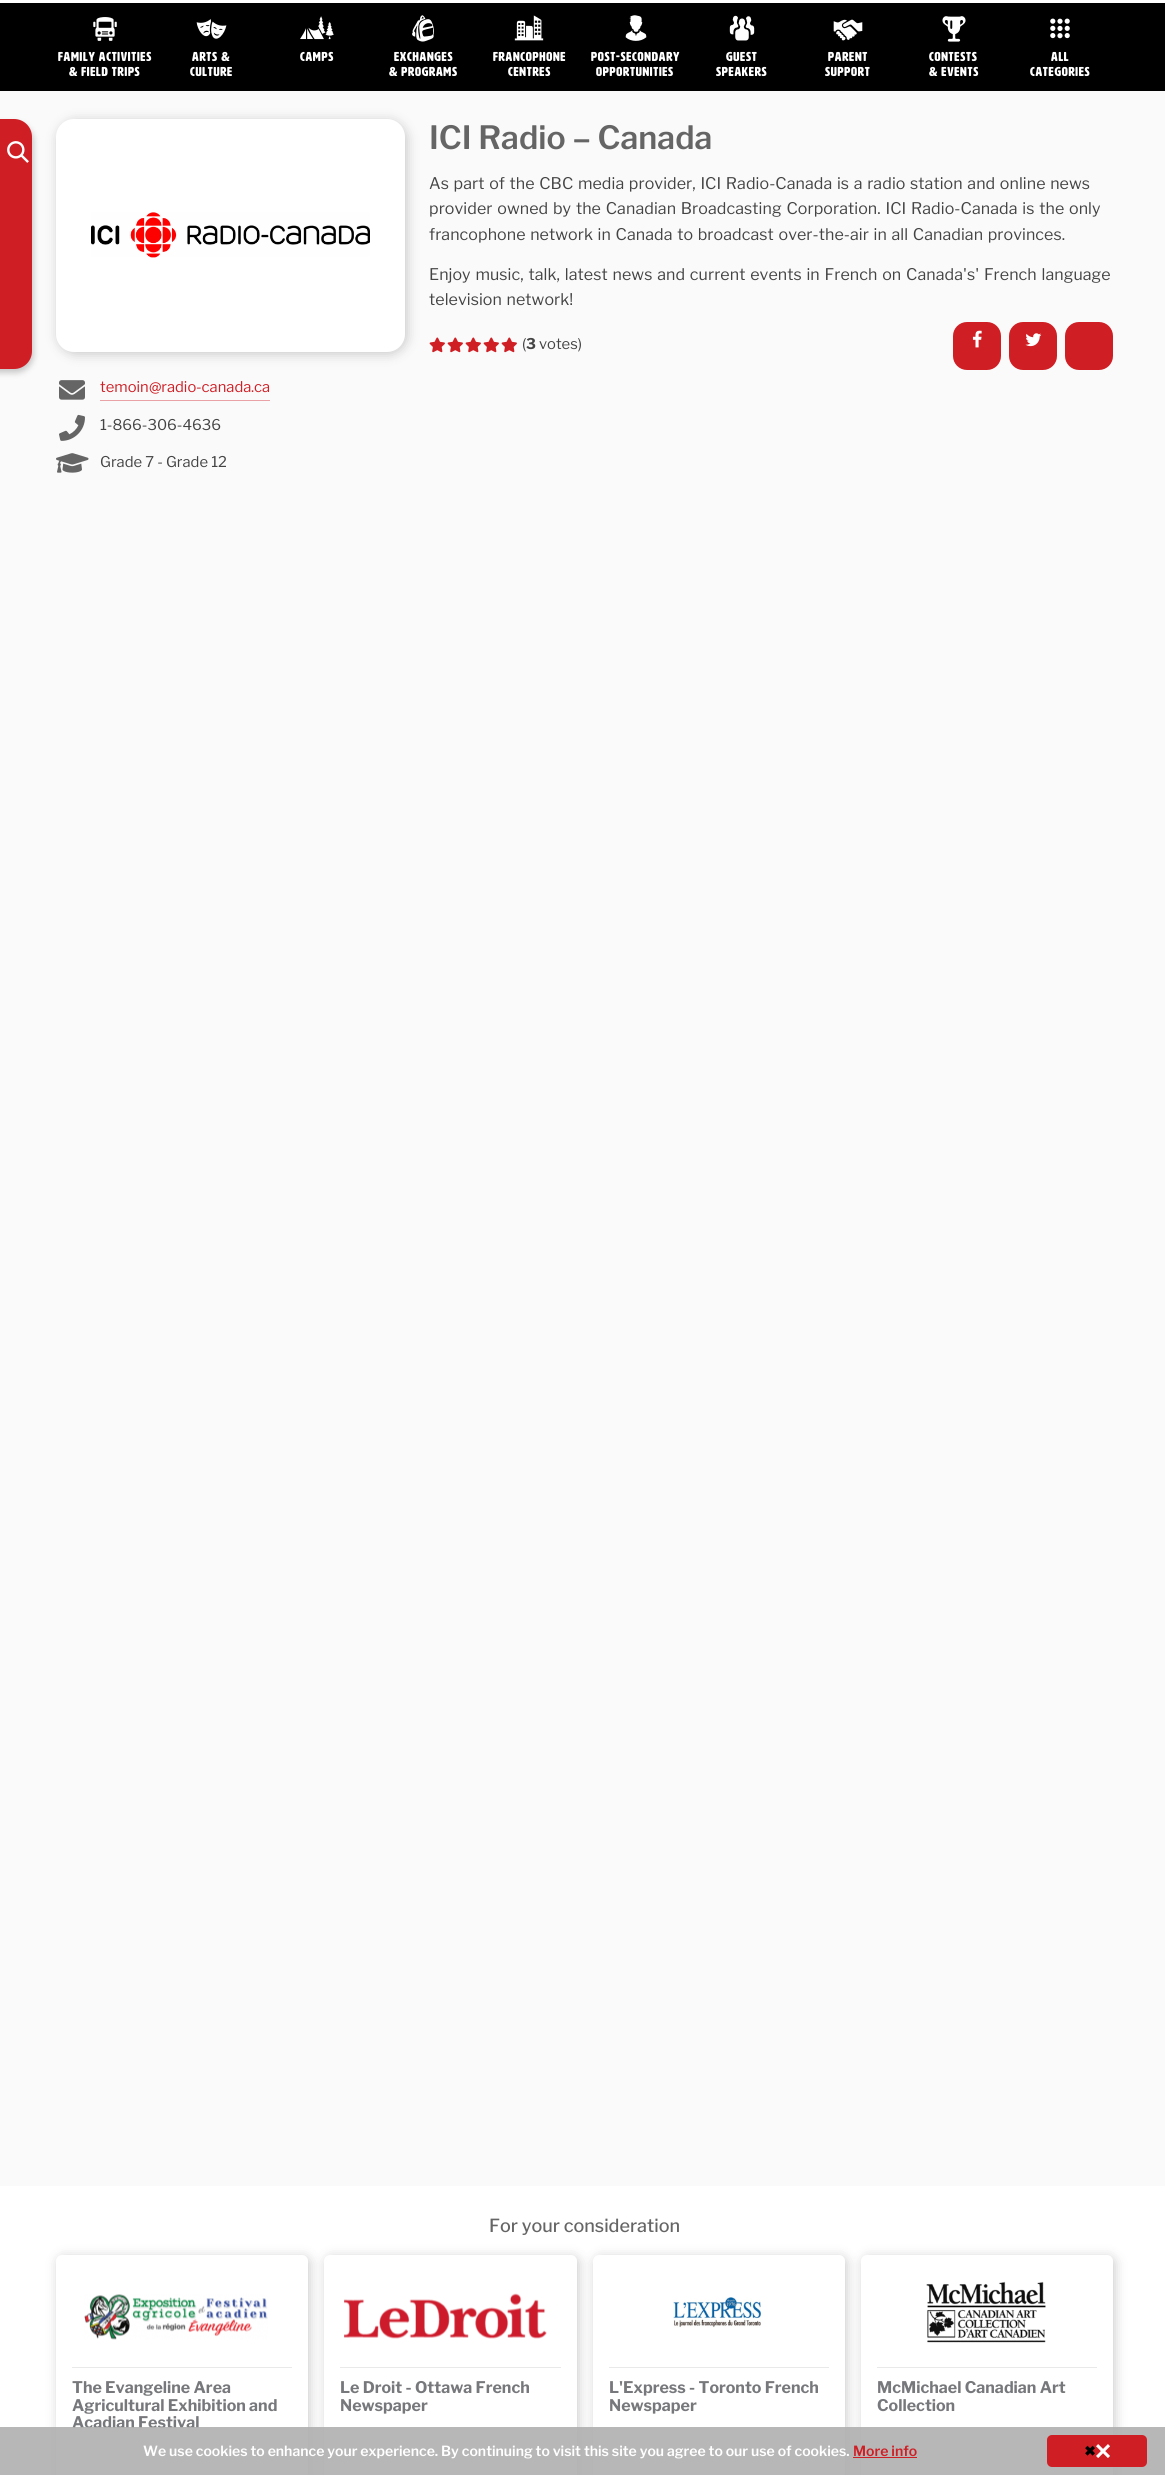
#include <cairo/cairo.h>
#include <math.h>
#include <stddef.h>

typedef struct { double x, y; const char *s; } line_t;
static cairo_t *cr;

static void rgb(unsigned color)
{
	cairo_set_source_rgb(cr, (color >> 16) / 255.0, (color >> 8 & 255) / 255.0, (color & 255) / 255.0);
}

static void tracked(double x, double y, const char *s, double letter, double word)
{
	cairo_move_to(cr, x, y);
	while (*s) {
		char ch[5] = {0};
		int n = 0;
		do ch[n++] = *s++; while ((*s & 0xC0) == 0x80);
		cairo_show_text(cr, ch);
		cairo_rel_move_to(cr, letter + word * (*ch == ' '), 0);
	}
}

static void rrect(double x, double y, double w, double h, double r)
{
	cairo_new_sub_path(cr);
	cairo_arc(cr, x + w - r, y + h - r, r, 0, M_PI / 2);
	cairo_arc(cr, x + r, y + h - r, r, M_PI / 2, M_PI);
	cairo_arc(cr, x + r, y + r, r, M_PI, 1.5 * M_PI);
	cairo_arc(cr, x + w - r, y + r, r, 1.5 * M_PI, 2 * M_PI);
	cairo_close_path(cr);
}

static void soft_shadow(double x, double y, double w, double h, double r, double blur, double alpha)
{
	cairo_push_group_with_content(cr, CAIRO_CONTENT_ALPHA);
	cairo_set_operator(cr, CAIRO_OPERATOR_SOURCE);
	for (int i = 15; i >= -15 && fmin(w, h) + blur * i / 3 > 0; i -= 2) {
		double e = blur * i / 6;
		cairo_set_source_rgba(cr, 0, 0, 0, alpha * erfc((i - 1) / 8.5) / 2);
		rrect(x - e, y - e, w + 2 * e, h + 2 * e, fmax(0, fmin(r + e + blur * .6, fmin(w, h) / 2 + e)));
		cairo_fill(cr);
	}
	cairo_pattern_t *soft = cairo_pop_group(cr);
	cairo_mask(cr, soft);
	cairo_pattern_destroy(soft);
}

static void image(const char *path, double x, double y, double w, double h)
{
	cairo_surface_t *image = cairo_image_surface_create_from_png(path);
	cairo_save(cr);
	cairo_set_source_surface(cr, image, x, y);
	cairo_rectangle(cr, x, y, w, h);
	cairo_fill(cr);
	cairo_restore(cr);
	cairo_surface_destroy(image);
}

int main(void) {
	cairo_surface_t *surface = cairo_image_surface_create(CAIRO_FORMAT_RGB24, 1165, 2475);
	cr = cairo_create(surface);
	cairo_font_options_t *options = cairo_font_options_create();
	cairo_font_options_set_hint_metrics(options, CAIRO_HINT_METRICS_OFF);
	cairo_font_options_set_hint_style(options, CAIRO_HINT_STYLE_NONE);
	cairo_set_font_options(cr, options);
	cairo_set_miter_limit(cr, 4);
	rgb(0xffffff);
	cairo_paint(cr);
	rgb(0x000000);
	cairo_rectangle(cr, 0, 3, 1165, 88);
	cairo_fill(cr);
	image("img/1.png", 93, 17, 24, 24);
	image("img/2.png", 196, 19, 31, 20);
	image("img/3.png", 300, 16, 34, 24);
	image("img/4.png", 412, 15, 22, 27);
	image("img/5.png", 514, 15, 30, 26);
	image("img/6.png", 625, 15, 22, 26);
	image("img/7.png", 729, 15, 26, 26);
	image("img/8.png", 833, 19, 30, 22);
	image("img/9.png", 942, 16, 24, 26);
	image("img/10.png", 1050, 18, 20, 21);
	rgb(0xfafafa);
	cairo_rectangle(cr, 0, 91, 1165, 2095);
	cairo_fill(cr);
	rgb(0x000000);
	soft_shadow(-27, 123, 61, 250, 18, 3, 0.2);
	rgb(0xcf1f25);
	cairo_new_path(cr);
	cairo_move_to(cr, -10, 119);
	cairo_line_to(cr, 14, 119);
	cairo_curve_to(cr, 24, 119, 32, 127, 32, 137);
	cairo_line_to(cr, 32, 351);
	cairo_curve_to(cr, 32, 361, 24, 369, 14, 369);
	cairo_line_to(cr, -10, 369);
	cairo_close_path(cr);
	cairo_fill(cr);
	image("img/11.png", 7, 141, 22, 22);
	image("img/12.png", 429, 337, 16, 16);
	image("img/12.png", 447, 337, 16, 16);
	image("img/12.png", 465, 337, 16, 16);
	image("img/12.png", 483, 337, 16, 16);
	image("img/12.png", 501, 337, 16, 16);
	rrect(953, 322, 48, 48, 14);
	cairo_fill(cr);
	image("img/13.png", 972, 330, 10, 18);
	rrect(1009, 322, 48, 48, 14);
	cairo_fill(cr);
	image("img/14.png", 1025, 333, 17, 14);
	rrect(1065, 322, 48, 48, 14);
	cairo_fill(cr);
	rgb(0x000000);
	soft_shadow(58, 121, 349, 233, 18, 6, 0.2);
	rgb(0xffffff);
	rrect(56, 119, 349, 233, 18);
	cairo_fill(cr);
	image("img/15.png", 91, 212, 279, 46);
	image("img/16.png", 59, 380, 26, 20);
	rgb(0xe9a2a5);
	cairo_rectangle(cr, 100, 400, 170, 1);
	cairo_fill(cr);
	image("img/17.png", 59, 414, 26, 27);
	image("img/18.png", 56, 453, 33, 20);
	rgb(0x000000);
	soft_shadow(58, 2257, 252, 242, 6, 6, 0.2);
	rgb(0xffffff);
	rrect(56, 2255, 252, 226, 6);
	cairo_fill(cr);
	image("img/19.png", 84, 2294, 184, 46);
	rgb(0xe9e9e9);
	cairo_rectangle(cr, 72, 2367, 220, 1);
	cairo_fill(cr);
	rgb(0x000000);
	soft_shadow(326, 2257, 253, 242, 6, 6, 0.2);
	rgb(0xffffff);
	rrect(324, 2255, 253, 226, 6);
	cairo_fill(cr);
	image("img/20.png", 344, 2293, 203, 46);
	rgb(0xe9e9e9);
	cairo_rectangle(cr, 340, 2367, 221, 1);
	cairo_fill(cr);
	rgb(0x000000);
	soft_shadow(595, 2257, 252, 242, 6, 6, 0.2);
	rgb(0xffffff);
	rrect(593, 2255, 252, 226, 6);
	cairo_fill(cr);
	image("img/21.png", 673, 2297, 88, 31);
	rgb(0xe9e9e9);
	cairo_rectangle(cr, 609, 2367, 220, 1);
	cairo_fill(cr);
	rgb(0x000000);
	soft_shadow(863, 2257, 252, 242, 6, 6, 0.2);
	rgb(0xffffff);
	rrect(861, 2255, 252, 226, 6);
	cairo_fill(cr);
	image("img/22.png", 926, 2281, 120, 62);
	rgb(0xe9e9e9);
	cairo_rectangle(cr, 877, 2367, 220, 1);
	cairo_fill(cr);
	cairo_select_font_face(cr, "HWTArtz", CAIRO_FONT_SLANT_NORMAL, CAIRO_FONT_WEIGHT_NORMAL);
	cairo_set_font_size(cr, 12.75);
	rgb(0xffffff);
	{
		static const line_t items[] = {
			{58, 61, "Family Activities"},
			{69, 76, "& Field Trips"},
			{192, 61, "Arts &"},
			{190, 76, "Culture"},
			{300, 61, "Camps"},
			{394, 61, "Exchanges"},
			{389, 76, "& Programs"},
			{493, 61, "Francophone"},
			{508, 76, "Centres"},
			{591, 61, "Post-Secondary"},
			{596, 76, "Opportunities"},
			{726, 61, "Guest"},
			{716, 76, "Speakers"},
			{828, 61, "Parent"},
			{825, 76, "Support"},
			{929, 61, "Contests"},
			{929, 76, "& Events"},
			{1051, 61, "All"},
			{1030, 76, "Categories"},
		};
		for (size_t i = 0; i < sizeof items / sizeof *items; i++) {
			tracked(items[i].x, items[i].y, items[i].s, 0.75, 0);
		}
	}
	cairo_select_font_face(cr, "Libre Franklin SemiBold", CAIRO_FONT_SLANT_NORMAL, CAIRO_FONT_WEIGHT_NORMAL);
	cairo_set_font_size(cr, 32);
	rgb(0x656565);
	cairo_move_to(cr, 429, 149);
	cairo_show_text(cr, "ICI Radio – Canada");
	cairo_select_font_face(cr, "Libre Franklin", CAIRO_FONT_SLANT_NORMAL, CAIRO_FONT_WEIGHT_NORMAL);
	cairo_set_font_size(cr, 16);
	rgb(0x444444);
	tracked(429, 189, "As part of the CBC media provider, ICI Radio-Canada is a radio station and online news", 0.08, 1.1);
	tracked(429, 214, "provider owned by the Canadian Broadcasting Corporation. ICI Radio-Canada is the only", 0.08, 1.25);
	tracked(429, 240, "francophone network in Canada to broadcast over-the-air in all Canadian provinces.", 0.08, 1.1);
	tracked(429, 280, "Enjoy music, talk, latest news and current events in French on Canada's' French language", 0.08, 1.25);
	tracked(429, 305, "television network!", 0.08, 1.1);
	cairo_set_font_size(cr, 14.75);
	cairo_move_to(cr, 522, 349);
	cairo_show_text(cr, "(");
	cairo_select_font_face(cr, "Libre Franklin", CAIRO_FONT_SLANT_NORMAL, CAIRO_FONT_WEIGHT_BOLD);
	cairo_move_to(cr, 526, 349);
	cairo_show_text(cr, "3");
	cairo_select_font_face(cr, "Libre Franklin", CAIRO_FONT_SLANT_NORMAL, CAIRO_FONT_WEIGHT_NORMAL);
	cairo_move_to(cr, 539, 349);
	cairo_show_text(cr, "votes)");
	rgb(0xcf1f25);
	{
		static const line_t items[] = {
			{100, 392, "temoin"},
			{149, 392, "@radio"},
			{196, 392, "-canada"},
			{251, 392, ".ca"},
		};
		for (size_t i = 0; i < sizeof items / sizeof *items; i++) {
			cairo_move_to(cr, items[i].x, items[i].y);
			cairo_show_text(cr, items[i].s);
		}
	}
	rgb(0x444444);
	cairo_move_to(cr, 100, 430);
	cairo_show_text(cr, "1-866-306-4636");
	cairo_move_to(cr, 100, 467);
	cairo_show_text(cr, "Grade 7 - Grade 12");
	cairo_select_font_face(cr, "Libre Franklin Medium", CAIRO_FONT_SLANT_NORMAL, CAIRO_FONT_WEIGHT_NORMAL);
	cairo_set_font_size(cr, 18);
	rgb(0x656565);
	cairo_move_to(cr, 489, 2232);
	cairo_show_text(cr, "For your consideration");
	cairo_select_font_face(cr, "Libre Franklin", CAIRO_FONT_SLANT_NORMAL, CAIRO_FONT_WEIGHT_BOLD);
	cairo_set_font_size(cr, 16);
	rgb(0x77787b);
	{
		static const line_t items[] = {
			{72, 2393, "The Evangeline Area"},
			{72, 2411, "Agricultural Exhibition and"},
			{72, 2428, "Acadian Festival"},
			{340, 2393, "Le Droit - Ottawa French"},
			{340, 2411, "Newspaper"},
			{609, 2393, "L'Express - Toronto French"},
			{609, 2411, "Newspaper"},
			{877, 2393, "McMichael Canadian Art"},
			{877, 2411, "Collection"},
		};
		for (size_t i = 0; i < sizeof items / sizeof *items; i++) {
			cairo_move_to(cr, items[i].x, items[i].y);
			cairo_show_text(cr, items[i].s);
		}
	}
	cairo_set_source_rgba(cr, 0.686, 0.686, 0.686, 0.9);
	cairo_rectangle(cr, 0, 2427, 1165, 48);
	cairo_fill(cr);
	cairo_select_font_face(cr, "Libre Franklin SemiBold", CAIRO_FONT_SLANT_NORMAL, CAIRO_FONT_WEIGHT_NORMAL);
	cairo_set_font_size(cr, 14);
	rgb(0xffffff);
	cairo_move_to(cr, 143, 2456);
	cairo_show_text(cr, "We use cookies to enhance your experience. By continuing to visit this site you agree to our use of cookies.");
	rgb(0xcf1f25);
	cairo_move_to(cr, 853, 2456);
	cairo_show_text(cr, "More info");
	cairo_rectangle(cr, 853, 2457, 64, 1);
	cairo_fill(cr);
	rrect(1047, 2435, 100, 32, 5);
	cairo_fill(cr);
	cairo_select_font_face(cr, "DejaVu Sans", CAIRO_FONT_SLANT_NORMAL, CAIRO_FONT_WEIGHT_BOLD);
	rgb(0x000000);
	cairo_move_to(cr, 1084, 2456);
	cairo_show_text(cr, "✖");
	image("img/23.png", 1096, 2444, 14, 14);
	cairo_surface_write_to_png(surface, "page.png");
	cairo_font_options_destroy(options);
	cairo_destroy(cr);
	cairo_surface_destroy(surface);
	return 0;
}
